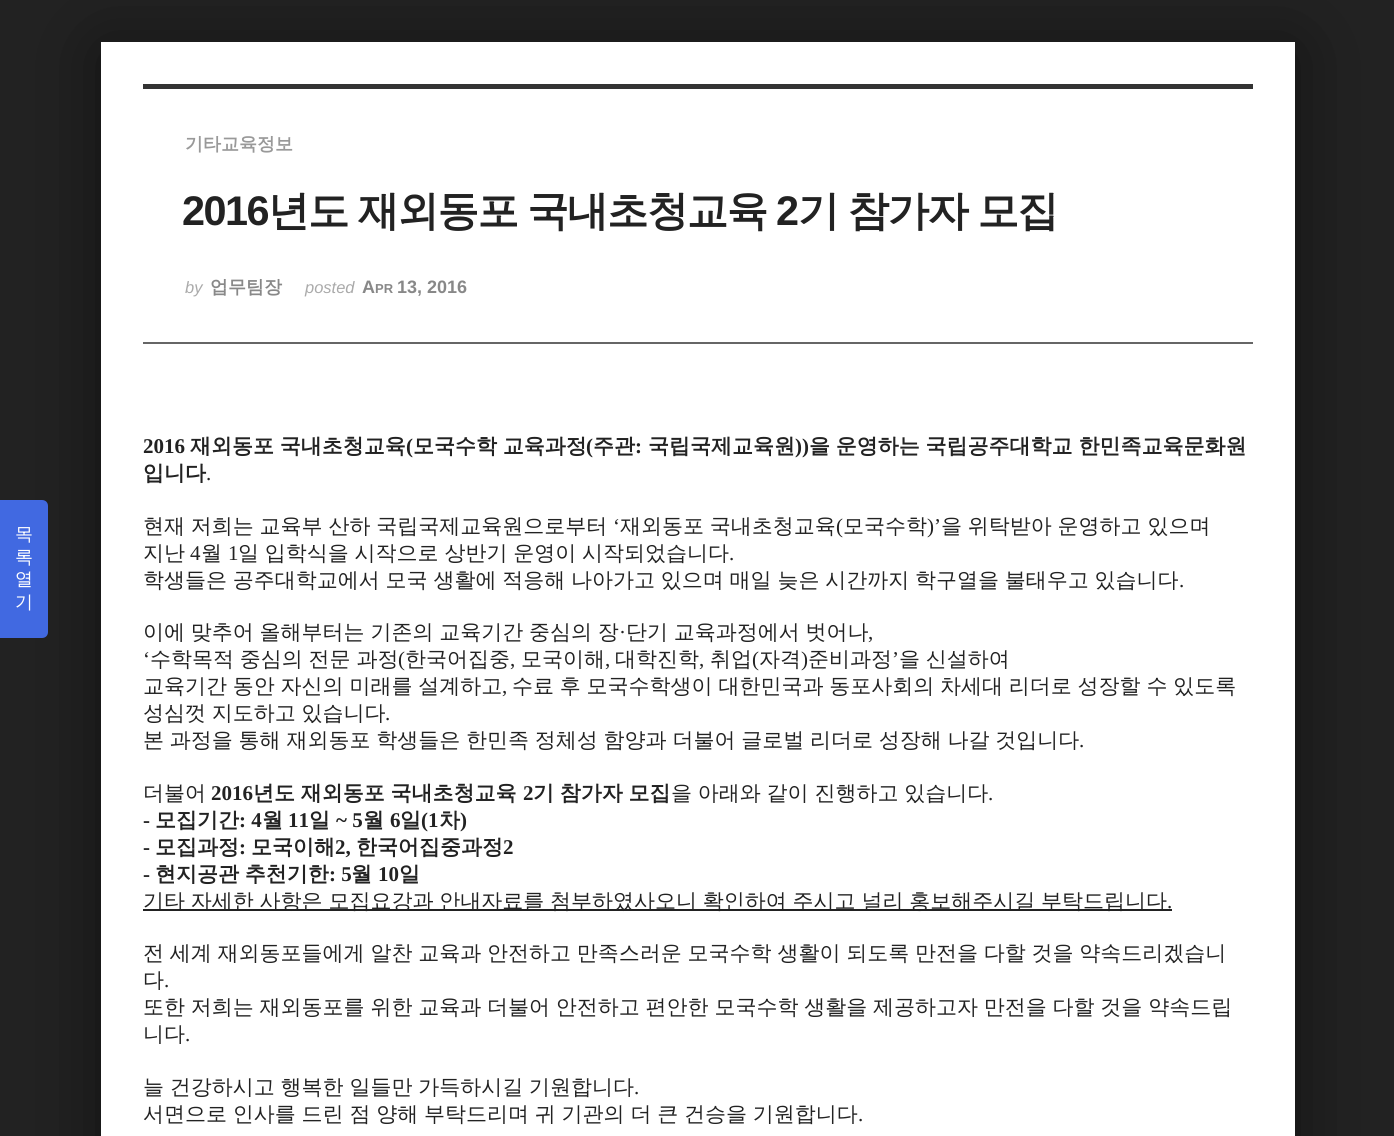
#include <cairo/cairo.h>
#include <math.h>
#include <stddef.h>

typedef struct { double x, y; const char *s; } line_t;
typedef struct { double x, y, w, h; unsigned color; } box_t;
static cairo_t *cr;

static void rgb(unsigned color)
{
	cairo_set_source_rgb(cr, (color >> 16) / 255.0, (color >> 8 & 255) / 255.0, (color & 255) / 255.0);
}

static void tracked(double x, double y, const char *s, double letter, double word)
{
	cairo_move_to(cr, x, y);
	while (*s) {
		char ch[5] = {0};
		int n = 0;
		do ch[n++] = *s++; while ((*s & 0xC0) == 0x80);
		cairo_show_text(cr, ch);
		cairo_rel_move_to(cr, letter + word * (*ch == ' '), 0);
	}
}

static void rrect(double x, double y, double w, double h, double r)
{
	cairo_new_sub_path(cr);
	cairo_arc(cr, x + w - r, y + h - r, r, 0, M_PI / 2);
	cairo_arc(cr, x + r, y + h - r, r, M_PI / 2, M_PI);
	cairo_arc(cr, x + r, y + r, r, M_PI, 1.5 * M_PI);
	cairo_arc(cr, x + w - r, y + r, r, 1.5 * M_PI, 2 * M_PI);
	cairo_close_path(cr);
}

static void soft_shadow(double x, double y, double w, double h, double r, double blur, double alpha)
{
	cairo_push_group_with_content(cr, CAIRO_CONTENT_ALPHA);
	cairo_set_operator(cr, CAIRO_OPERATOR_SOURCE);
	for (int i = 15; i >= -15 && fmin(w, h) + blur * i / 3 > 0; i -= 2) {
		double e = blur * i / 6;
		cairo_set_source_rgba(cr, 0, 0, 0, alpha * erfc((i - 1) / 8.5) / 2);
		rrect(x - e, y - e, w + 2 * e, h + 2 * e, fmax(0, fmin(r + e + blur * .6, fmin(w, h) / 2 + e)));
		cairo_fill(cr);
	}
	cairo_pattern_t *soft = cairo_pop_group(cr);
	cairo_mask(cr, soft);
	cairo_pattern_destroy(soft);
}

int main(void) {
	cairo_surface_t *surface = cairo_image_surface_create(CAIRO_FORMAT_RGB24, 1394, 1136);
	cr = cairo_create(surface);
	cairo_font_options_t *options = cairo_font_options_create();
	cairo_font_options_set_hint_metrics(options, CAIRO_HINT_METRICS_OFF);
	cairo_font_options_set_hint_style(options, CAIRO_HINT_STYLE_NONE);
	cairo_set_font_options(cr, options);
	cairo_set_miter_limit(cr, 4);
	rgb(0x222222);
	cairo_paint(cr);
	rgb(0x000000);
	soft_shadow(101, 48, 1194, 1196, 0, 36, 0.5);
	rgb(0xffffff);
	cairo_rectangle(cr, 101, 42, 1194, 1094);
	cairo_fill(cr);
	rgb(0x4169e1);
	cairo_new_path(cr);
	cairo_move_to(cr, 0, 500);
	cairo_line_to(cr, 42, 500);
	cairo_curve_to(cr, 45.5, 500, 48, 502.5, 48, 506);
	cairo_line_to(cr, 48, 632);
	cairo_curve_to(cr, 48, 635.5, 45.5, 638, 42, 638);
	cairo_line_to(cr, 0, 638);
	cairo_close_path(cr);
	cairo_fill(cr);
	{
		static const box_t items[] = {
			{143, 84, 1110, 5, 0x333333},
			{143, 342, 1110, 2, 0x666666},
			{143, 909, 1029, 2, 0x222222},
		};
		for (size_t i = 0; i < sizeof items / sizeof *items; i++) {
			rgb(items[i].color);
			cairo_rectangle(cr, items[i].x, items[i].y, items[i].w, items[i].h);
			cairo_fill(cr);
		}
	}
	cairo_select_font_face(cr, "WenQuanYi Zen Hei Medium", CAIRO_FONT_SLANT_NORMAL, CAIRO_FONT_WEIGHT_NORMAL);
	cairo_set_font_size(cr, 18);
	rgb(0xffffff);
	{
		static const line_t items[] = {
			{15, 540, "목"},
			{15, 563, "록"},
			{15, 585, "열"},
			{15, 608, "기"},
		};
		for (size_t i = 0; i < sizeof items / sizeof *items; i++) {
			cairo_move_to(cr, items[i].x, items[i].y);
			cairo_show_text(cr, items[i].s);
		}
	}
	cairo_select_font_face(cr, "WenQuanYi Zen Hei", CAIRO_FONT_SLANT_NORMAL, CAIRO_FONT_WEIGHT_BOLD);
	rgb(0x999999);
	cairo_move_to(cr, 185, 150);
	cairo_show_text(cr, "기타교육정보");
	cairo_select_font_face(cr, "Liberation Sans", CAIRO_FONT_SLANT_NORMAL, CAIRO_FONT_WEIGHT_BOLD);
	cairo_set_font_size(cr, 41.4);
	rgb(0x222222);
	tracked(182, 225, "2016", -1.5, 0);
	cairo_select_font_face(cr, "WenQuanYi Zen Hei", CAIRO_FONT_SLANT_NORMAL, CAIRO_FONT_WEIGHT_BOLD);
	tracked(268, 225, "년도 재외동포 국내초청교육", -1.5, -1);
	cairo_select_font_face(cr, "Liberation Sans", CAIRO_FONT_SLANT_NORMAL, CAIRO_FONT_WEIGHT_BOLD);
	tracked(776, 225, "2", -1.5, 0);
	cairo_select_font_face(cr, "WenQuanYi Zen Hei", CAIRO_FONT_SLANT_NORMAL, CAIRO_FONT_WEIGHT_BOLD);
	tracked(798, 225, "기 참가자 모집", -1.5, -1);
	cairo_select_font_face(cr, "Liberation Sans", CAIRO_FONT_SLANT_ITALIC, CAIRO_FONT_WEIGHT_NORMAL);
	cairo_set_font_size(cr, 16.5);
	rgb(0xaaaaaa);
	cairo_move_to(cr, 185, 293);
	cairo_show_text(cr, "by");
	cairo_select_font_face(cr, "WenQuanYi Zen Hei", CAIRO_FONT_SLANT_NORMAL, CAIRO_FONT_WEIGHT_BOLD);
	cairo_set_font_size(cr, 18);
	rgb(0x888888);
	cairo_move_to(cr, 210, 293);
	cairo_show_text(cr, "업무팀장");
	cairo_select_font_face(cr, "Liberation Sans", CAIRO_FONT_SLANT_ITALIC, CAIRO_FONT_WEIGHT_NORMAL);
	cairo_set_font_size(cr, 16.5);
	rgb(0xaaaaaa);
	cairo_move_to(cr, 305, 293);
	cairo_show_text(cr, "posted");
	cairo_select_font_face(cr, "Liberation Sans", CAIRO_FONT_SLANT_NORMAL, CAIRO_FONT_WEIGHT_BOLD);
	cairo_set_font_size(cr, 18);
	rgb(0x888888);
	cairo_move_to(cr, 362, 293);
	cairo_show_text(cr, "A");
	cairo_set_font_size(cr, 13);
	cairo_move_to(cr, 375, 293);
	cairo_show_text(cr, "PR");
	cairo_set_font_size(cr, 18);
	cairo_move_to(cr, 397, 293);
	cairo_show_text(cr, "13, 2016");
	cairo_select_font_face(cr, "Liberation Serif", CAIRO_FONT_SLANT_NORMAL, CAIRO_FONT_WEIGHT_BOLD);
	cairo_set_font_size(cr, 21);
	rgb(0x222222);
	cairo_move_to(cr, 143, 453);
	cairo_show_text(cr, "2016");
	cairo_select_font_face(cr, "WenQuanYi Zen Hei", CAIRO_FONT_SLANT_NORMAL, CAIRO_FONT_WEIGHT_BOLD);
	tracked(190, 453, "재외동포 국내초청교육", 0, -0.5);
	cairo_select_font_face(cr, "Liberation Serif", CAIRO_FONT_SLANT_NORMAL, CAIRO_FONT_WEIGHT_BOLD);
	cairo_move_to(cr, 406, 453);
	cairo_show_text(cr, "(");
	cairo_select_font_face(cr, "WenQuanYi Zen Hei", CAIRO_FONT_SLANT_NORMAL, CAIRO_FONT_WEIGHT_BOLD);
	tracked(413, 453, "모국수학 교육과정", 0, -0.5);
	cairo_select_font_face(cr, "Liberation Serif", CAIRO_FONT_SLANT_NORMAL, CAIRO_FONT_WEIGHT_BOLD);
	cairo_move_to(cr, 586, 453);
	cairo_show_text(cr, "(");
	cairo_select_font_face(cr, "WenQuanYi Zen Hei", CAIRO_FONT_SLANT_NORMAL, CAIRO_FONT_WEIGHT_BOLD);
	cairo_move_to(cr, 593, 453);
	cairo_show_text(cr, "주관");
	cairo_select_font_face(cr, "Liberation Serif", CAIRO_FONT_SLANT_NORMAL, CAIRO_FONT_WEIGHT_BOLD);
	cairo_move_to(cr, 635, 453);
	cairo_show_text(cr, ":");
	cairo_select_font_face(cr, "WenQuanYi Zen Hei", CAIRO_FONT_SLANT_NORMAL, CAIRO_FONT_WEIGHT_BOLD);
	cairo_move_to(cr, 648, 453);
	cairo_show_text(cr, "국립국제교육원");
	cairo_select_font_face(cr, "Liberation Serif", CAIRO_FONT_SLANT_NORMAL, CAIRO_FONT_WEIGHT_BOLD);
	cairo_move_to(cr, 795, 453);
	cairo_show_text(cr, "))");
	cairo_select_font_face(cr, "WenQuanYi Zen Hei", CAIRO_FONT_SLANT_NORMAL, CAIRO_FONT_WEIGHT_BOLD);
	tracked(809, 453, "을 운영하는 국립공주대학교 한민족교육문화원", 0, -0.5);
	cairo_move_to(cr, 143, 480);
	cairo_show_text(cr, "입니다");
	cairo_select_font_face(cr, "Liberation Serif", CAIRO_FONT_SLANT_NORMAL, CAIRO_FONT_WEIGHT_NORMAL);
	cairo_move_to(cr, 206, 480);
	cairo_show_text(cr, ".");
	cairo_select_font_face(cr, "WenQuanYi Zen Hei Medium", CAIRO_FONT_SLANT_NORMAL, CAIRO_FONT_WEIGHT_NORMAL);
	tracked(143, 533, "현재 저희는 교육부 산하 국립국제교육원으로부터", 0, -0.5);
	cairo_select_font_face(cr, "Liberation Serif", CAIRO_FONT_SLANT_NORMAL, CAIRO_FONT_WEIGHT_NORMAL);
	cairo_move_to(cr, 613, 533);
	cairo_show_text(cr, "‘");
	cairo_select_font_face(cr, "WenQuanYi Zen Hei Medium", CAIRO_FONT_SLANT_NORMAL, CAIRO_FONT_WEIGHT_NORMAL);
	tracked(620, 533, "재외동포 국내초청교육", 0, -0.5);
	cairo_select_font_face(cr, "Liberation Serif", CAIRO_FONT_SLANT_NORMAL, CAIRO_FONT_WEIGHT_NORMAL);
	cairo_move_to(cr, 836, 533);
	cairo_show_text(cr, "(");
	cairo_select_font_face(cr, "WenQuanYi Zen Hei Medium", CAIRO_FONT_SLANT_NORMAL, CAIRO_FONT_WEIGHT_NORMAL);
	cairo_move_to(cr, 843, 533);
	cairo_show_text(cr, "모국수학");
	cairo_select_font_face(cr, "Liberation Serif", CAIRO_FONT_SLANT_NORMAL, CAIRO_FONT_WEIGHT_NORMAL);
	cairo_move_to(cr, 927, 533);
	cairo_show_text(cr, ")’");
	cairo_select_font_face(cr, "WenQuanYi Zen Hei Medium", CAIRO_FONT_SLANT_NORMAL, CAIRO_FONT_WEIGHT_NORMAL);
	tracked(941, 533, "을 위탁받아 운영하고 있으며", 0, -0.5);
	cairo_move_to(cr, 143, 560);
	cairo_show_text(cr, "지난");
	cairo_select_font_face(cr, "Liberation Serif", CAIRO_FONT_SLANT_NORMAL, CAIRO_FONT_WEIGHT_NORMAL);
	cairo_move_to(cr, 190, 560);
	cairo_show_text(cr, "4");
	cairo_select_font_face(cr, "WenQuanYi Zen Hei Medium", CAIRO_FONT_SLANT_NORMAL, CAIRO_FONT_WEIGHT_NORMAL);
	cairo_move_to(cr, 201, 560);
	cairo_show_text(cr, "월");
	cairo_select_font_face(cr, "Liberation Serif", CAIRO_FONT_SLANT_NORMAL, CAIRO_FONT_WEIGHT_NORMAL);
	cairo_move_to(cr, 228, 560);
	cairo_show_text(cr, "1");
	cairo_select_font_face(cr, "WenQuanYi Zen Hei Medium", CAIRO_FONT_SLANT_NORMAL, CAIRO_FONT_WEIGHT_NORMAL);
	tracked(238, 560, "일 입학식을 시작으로 상반기 운영이 시작되었습니다", 0, -0.5);
	cairo_select_font_face(cr, "Liberation Serif", CAIRO_FONT_SLANT_NORMAL, CAIRO_FONT_WEIGHT_NORMAL);
	cairo_move_to(cr, 729, 560);
	cairo_show_text(cr, ".");
	cairo_select_font_face(cr, "WenQuanYi Zen Hei Medium", CAIRO_FONT_SLANT_NORMAL, CAIRO_FONT_WEIGHT_NORMAL);
	tracked(143, 587, "학생들은 공주대학교에서 모국 생활에 적응해 나아가고 있으며 매일 늦은 시간까지 학구열을 불태우고 있습니다", 0, -0.5);
	cairo_select_font_face(cr, "Liberation Serif", CAIRO_FONT_SLANT_NORMAL, CAIRO_FONT_WEIGHT_NORMAL);
	cairo_move_to(cr, 1179, 587);
	cairo_show_text(cr, ".");
	cairo_select_font_face(cr, "WenQuanYi Zen Hei Medium", CAIRO_FONT_SLANT_NORMAL, CAIRO_FONT_WEIGHT_NORMAL);
	tracked(143, 639, "이에 맞추어 올해부터는 기존의 교육기간 중심의 장", 0, -0.5);
	cairo_select_font_face(cr, "Liberation Serif", CAIRO_FONT_SLANT_NORMAL, CAIRO_FONT_WEIGHT_NORMAL);
	cairo_move_to(cr, 619, 639);
	cairo_show_text(cr, "·");
	cairo_select_font_face(cr, "WenQuanYi Zen Hei Medium", CAIRO_FONT_SLANT_NORMAL, CAIRO_FONT_WEIGHT_NORMAL);
	tracked(626, 639, "단기 교육과정에서 벗어나", 0, -0.5);
	cairo_select_font_face(cr, "Liberation Serif", CAIRO_FONT_SLANT_NORMAL, CAIRO_FONT_WEIGHT_NORMAL);
	cairo_move_to(cr, 868, 639);
	cairo_show_text(cr, ",");
	cairo_move_to(cr, 143, 666);
	cairo_show_text(cr, "‘");
	cairo_select_font_face(cr, "WenQuanYi Zen Hei Medium", CAIRO_FONT_SLANT_NORMAL, CAIRO_FONT_WEIGHT_NORMAL);
	tracked(150, 666, "수학목적 중심의 전문 과정", 0, -0.5);
	cairo_select_font_face(cr, "Liberation Serif", CAIRO_FONT_SLANT_NORMAL, CAIRO_FONT_WEIGHT_NORMAL);
	cairo_move_to(cr, 398, 666);
	cairo_show_text(cr, "(");
	cairo_select_font_face(cr, "WenQuanYi Zen Hei Medium", CAIRO_FONT_SLANT_NORMAL, CAIRO_FONT_WEIGHT_NORMAL);
	{
		static const line_t items[] = {
			{405, 666, "한국어집중"},
			{521, 666, "모국이해"},
			{615, 666, "대학진학"},
			{710, 666, "취업"},
		};
		for (size_t i = 0; i < sizeof items / sizeof *items; i++) {
			cairo_move_to(cr, items[i].x, items[i].y);
			cairo_show_text(cr, items[i].s);
		}
	}
	cairo_select_font_face(cr, "Liberation Serif", CAIRO_FONT_SLANT_NORMAL, CAIRO_FONT_WEIGHT_NORMAL);
	cairo_move_to(cr, 752, 666);
	cairo_show_text(cr, "(");
	cairo_select_font_face(cr, "WenQuanYi Zen Hei Medium", CAIRO_FONT_SLANT_NORMAL, CAIRO_FONT_WEIGHT_NORMAL);
	cairo_move_to(cr, 759, 666);
	cairo_show_text(cr, "자격");
	cairo_select_font_face(cr, "Liberation Serif", CAIRO_FONT_SLANT_NORMAL, CAIRO_FONT_WEIGHT_NORMAL);
	cairo_move_to(cr, 801, 666);
	cairo_show_text(cr, ")");
	cairo_select_font_face(cr, "WenQuanYi Zen Hei Medium", CAIRO_FONT_SLANT_NORMAL, CAIRO_FONT_WEIGHT_NORMAL);
	cairo_move_to(cr, 808, 666);
	cairo_show_text(cr, "준비과정");
	cairo_select_font_face(cr, "Liberation Serif", CAIRO_FONT_SLANT_NORMAL, CAIRO_FONT_WEIGHT_NORMAL);
	cairo_move_to(cr, 892, 666);
	cairo_show_text(cr, "’");
	cairo_select_font_face(cr, "WenQuanYi Zen Hei Medium", CAIRO_FONT_SLANT_NORMAL, CAIRO_FONT_WEIGHT_NORMAL);
	tracked(899, 666, "을 신설하여", 0, -0.5);
	cairo_select_font_face(cr, "Liberation Serif", CAIRO_FONT_SLANT_NORMAL, CAIRO_FONT_WEIGHT_NORMAL);
	{
		static const line_t items[] = {
			{510, 666, ","},
			{605, 666, ","},
			{699, 666, ","},
		};
		for (size_t i = 0; i < sizeof items / sizeof *items; i++) {
			cairo_move_to(cr, items[i].x, items[i].y);
			cairo_show_text(cr, items[i].s);
		}
	}
	cairo_select_font_face(cr, "WenQuanYi Zen Hei Medium", CAIRO_FONT_SLANT_NORMAL, CAIRO_FONT_WEIGHT_NORMAL);
	tracked(143, 693, "교육기간 동안 자신의 미래를 설계하고", 0, -0.5);
	cairo_select_font_face(cr, "Liberation Serif", CAIRO_FONT_SLANT_NORMAL, CAIRO_FONT_WEIGHT_NORMAL);
	cairo_move_to(cr, 502, 693);
	cairo_show_text(cr, ",");
	cairo_select_font_face(cr, "WenQuanYi Zen Hei Medium", CAIRO_FONT_SLANT_NORMAL, CAIRO_FONT_WEIGHT_NORMAL);
	tracked(512, 693, "수료 후 모국수학생이 대한민국과 동포사회의 차세대 리더로 성장할 수 있도록", 0, -0.5);
	tracked(143, 720, "성심껏 지도하고 있습니다", 0, -0.5);
	cairo_select_font_face(cr, "Liberation Serif", CAIRO_FONT_SLANT_NORMAL, CAIRO_FONT_WEIGHT_NORMAL);
	cairo_move_to(cr, 385, 720);
	cairo_show_text(cr, ".");
	cairo_select_font_face(cr, "WenQuanYi Zen Hei Medium", CAIRO_FONT_SLANT_NORMAL, CAIRO_FONT_WEIGHT_NORMAL);
	tracked(143, 747, "본 과정을 통해 재외동포 학생들은 한민족 정체성 함양과 더불어 글로벌 리더로 성장해 나갈 것입니다", 0, -0.5);
	cairo_select_font_face(cr, "Liberation Serif", CAIRO_FONT_SLANT_NORMAL, CAIRO_FONT_WEIGHT_NORMAL);
	cairo_move_to(cr, 1079, 747);
	cairo_show_text(cr, ".");
	cairo_select_font_face(cr, "WenQuanYi Zen Hei Medium", CAIRO_FONT_SLANT_NORMAL, CAIRO_FONT_WEIGHT_NORMAL);
	cairo_move_to(cr, 143, 800);
	cairo_show_text(cr, "더불어");
	cairo_select_font_face(cr, "Liberation Serif", CAIRO_FONT_SLANT_NORMAL, CAIRO_FONT_WEIGHT_BOLD);
	cairo_move_to(cr, 211, 800);
	cairo_show_text(cr, "2016");
	cairo_select_font_face(cr, "WenQuanYi Zen Hei", CAIRO_FONT_SLANT_NORMAL, CAIRO_FONT_WEIGHT_BOLD);
	tracked(253, 800, "년도 재외동포 국내초청교육", 0, -0.5);
	cairo_select_font_face(cr, "Liberation Serif", CAIRO_FONT_SLANT_NORMAL, CAIRO_FONT_WEIGHT_BOLD);
	cairo_move_to(cr, 523, 800);
	cairo_show_text(cr, "2");
	cairo_select_font_face(cr, "WenQuanYi Zen Hei", CAIRO_FONT_SLANT_NORMAL, CAIRO_FONT_WEIGHT_BOLD);
	tracked(533, 800, "기 참가자 모집", 0, -0.5);
	cairo_select_font_face(cr, "WenQuanYi Zen Hei Medium", CAIRO_FONT_SLANT_NORMAL, CAIRO_FONT_WEIGHT_NORMAL);
	tracked(671, 800, "을 아래와 같이 진행하고 있습니다", 0, -0.5);
	cairo_select_font_face(cr, "Liberation Serif", CAIRO_FONT_SLANT_NORMAL, CAIRO_FONT_WEIGHT_NORMAL);
	cairo_move_to(cr, 988, 800);
	cairo_show_text(cr, ".");
	cairo_select_font_face(cr, "Liberation Serif", CAIRO_FONT_SLANT_NORMAL, CAIRO_FONT_WEIGHT_BOLD);
	cairo_move_to(cr, 143, 827);
	cairo_show_text(cr, "-");
	cairo_select_font_face(cr, "WenQuanYi Zen Hei", CAIRO_FONT_SLANT_NORMAL, CAIRO_FONT_WEIGHT_BOLD);
	cairo_move_to(cr, 155, 827);
	cairo_show_text(cr, "모집기간");
	cairo_select_font_face(cr, "Liberation Serif", CAIRO_FONT_SLANT_NORMAL, CAIRO_FONT_WEIGHT_BOLD);
	cairo_move_to(cr, 239, 827);
	cairo_show_text(cr, ": 4");
	cairo_select_font_face(cr, "WenQuanYi Zen Hei", CAIRO_FONT_SLANT_NORMAL, CAIRO_FONT_WEIGHT_BOLD);
	cairo_move_to(cr, 262, 827);
	cairo_show_text(cr, "월");
	cairo_select_font_face(cr, "Liberation Serif", CAIRO_FONT_SLANT_NORMAL, CAIRO_FONT_WEIGHT_BOLD);
	cairo_move_to(cr, 288, 827);
	cairo_show_text(cr, "11");
	cairo_select_font_face(cr, "WenQuanYi Zen Hei", CAIRO_FONT_SLANT_NORMAL, CAIRO_FONT_WEIGHT_BOLD);
	cairo_move_to(cr, 309, 827);
	cairo_show_text(cr, "일");
	cairo_select_font_face(cr, "Liberation Serif", CAIRO_FONT_SLANT_NORMAL, CAIRO_FONT_WEIGHT_BOLD);
	cairo_move_to(cr, 336, 827);
	cairo_show_text(cr, "~ 5");
	cairo_select_font_face(cr, "WenQuanYi Zen Hei", CAIRO_FONT_SLANT_NORMAL, CAIRO_FONT_WEIGHT_BOLD);
	cairo_move_to(cr, 363, 827);
	cairo_show_text(cr, "월");
	cairo_select_font_face(cr, "Liberation Serif", CAIRO_FONT_SLANT_NORMAL, CAIRO_FONT_WEIGHT_BOLD);
	cairo_move_to(cr, 390, 827);
	cairo_show_text(cr, "6");
	cairo_select_font_face(cr, "WenQuanYi Zen Hei", CAIRO_FONT_SLANT_NORMAL, CAIRO_FONT_WEIGHT_BOLD);
	cairo_move_to(cr, 400, 827);
	cairo_show_text(cr, "일");
	cairo_select_font_face(cr, "Liberation Serif", CAIRO_FONT_SLANT_NORMAL, CAIRO_FONT_WEIGHT_BOLD);
	cairo_move_to(cr, 421, 827);
	cairo_show_text(cr, "(1");
	cairo_select_font_face(cr, "WenQuanYi Zen Hei", CAIRO_FONT_SLANT_NORMAL, CAIRO_FONT_WEIGHT_BOLD);
	cairo_move_to(cr, 439, 827);
	cairo_show_text(cr, "차");
	cairo_select_font_face(cr, "Liberation Serif", CAIRO_FONT_SLANT_NORMAL, CAIRO_FONT_WEIGHT_BOLD);
	cairo_move_to(cr, 460, 827);
	cairo_show_text(cr, ")");
	cairo_move_to(cr, 143, 854);
	cairo_show_text(cr, "-");
	cairo_select_font_face(cr, "WenQuanYi Zen Hei", CAIRO_FONT_SLANT_NORMAL, CAIRO_FONT_WEIGHT_BOLD);
	cairo_move_to(cr, 155, 854);
	cairo_show_text(cr, "모집과정");
	cairo_select_font_face(cr, "Liberation Serif", CAIRO_FONT_SLANT_NORMAL, CAIRO_FONT_WEIGHT_BOLD);
	cairo_move_to(cr, 239, 854);
	cairo_show_text(cr, ":");
	cairo_select_font_face(cr, "WenQuanYi Zen Hei", CAIRO_FONT_SLANT_NORMAL, CAIRO_FONT_WEIGHT_BOLD);
	cairo_move_to(cr, 251, 854);
	cairo_show_text(cr, "모국이해");
	cairo_select_font_face(cr, "Liberation Serif", CAIRO_FONT_SLANT_NORMAL, CAIRO_FONT_WEIGHT_BOLD);
	cairo_move_to(cr, 335, 854);
	cairo_show_text(cr, "2,");
	cairo_select_font_face(cr, "WenQuanYi Zen Hei", CAIRO_FONT_SLANT_NORMAL, CAIRO_FONT_WEIGHT_BOLD);
	cairo_move_to(cr, 356, 854);
	cairo_show_text(cr, "한국어집중과정");
	cairo_select_font_face(cr, "Liberation Serif", CAIRO_FONT_SLANT_NORMAL, CAIRO_FONT_WEIGHT_BOLD);
	cairo_move_to(cr, 503, 854);
	cairo_show_text(cr, "2");
	cairo_move_to(cr, 143, 881);
	cairo_show_text(cr, "-");
	cairo_select_font_face(cr, "WenQuanYi Zen Hei", CAIRO_FONT_SLANT_NORMAL, CAIRO_FONT_WEIGHT_BOLD);
	tracked(155, 881, "현지공관 추천기한", 0, -0.5);
	cairo_select_font_face(cr, "Liberation Serif", CAIRO_FONT_SLANT_NORMAL, CAIRO_FONT_WEIGHT_BOLD);
	cairo_move_to(cr, 329, 881);
	cairo_show_text(cr, ": 5");
	cairo_select_font_face(cr, "WenQuanYi Zen Hei", CAIRO_FONT_SLANT_NORMAL, CAIRO_FONT_WEIGHT_BOLD);
	cairo_move_to(cr, 351, 881);
	cairo_show_text(cr, "월");
	cairo_select_font_face(cr, "Liberation Serif", CAIRO_FONT_SLANT_NORMAL, CAIRO_FONT_WEIGHT_BOLD);
	cairo_move_to(cr, 378, 881);
	cairo_show_text(cr, "10");
	cairo_select_font_face(cr, "WenQuanYi Zen Hei", CAIRO_FONT_SLANT_NORMAL, CAIRO_FONT_WEIGHT_BOLD);
	cairo_move_to(cr, 399, 881);
	cairo_show_text(cr, "일");
	cairo_select_font_face(cr, "WenQuanYi Zen Hei Medium", CAIRO_FONT_SLANT_NORMAL, CAIRO_FONT_WEIGHT_NORMAL);
	tracked(143, 908, "기타 자세한 사항은 모집요강과 안내자료를 첨부하였사오니 확인하여 주시고 널리 홍보해주시길 부탁드립니다", 0, -0.5);
	cairo_select_font_face(cr, "Liberation Serif", CAIRO_FONT_SLANT_NORMAL, CAIRO_FONT_WEIGHT_NORMAL);
	cairo_move_to(cr, 1167, 908);
	cairo_show_text(cr, ".");
	cairo_select_font_face(cr, "WenQuanYi Zen Hei Medium", CAIRO_FONT_SLANT_NORMAL, CAIRO_FONT_WEIGHT_NORMAL);
	tracked(143, 960, "전 세계 재외동포들에게 알찬 교육과 안전하고 만족스러운 모국수학 생활이 되도록 만전을 다할 것을 약속드리겠습니", 0, -0.5);
	cairo_move_to(cr, 143, 987);
	cairo_show_text(cr, "다");
	cairo_select_font_face(cr, "Liberation Serif", CAIRO_FONT_SLANT_NORMAL, CAIRO_FONT_WEIGHT_NORMAL);
	cairo_move_to(cr, 164, 987);
	cairo_show_text(cr, ".");
	cairo_select_font_face(cr, "WenQuanYi Zen Hei Medium", CAIRO_FONT_SLANT_NORMAL, CAIRO_FONT_WEIGHT_NORMAL);
	tracked(143, 1014, "또한 저희는 재외동포를 위한 교육과 더불어 안전하고 편안한 모국수학 생활을 제공하고자 만전을 다할 것을 약속드립", 0, -0.5);
	cairo_move_to(cr, 143, 1041);
	cairo_show_text(cr, "니다");
	cairo_select_font_face(cr, "Liberation Serif", CAIRO_FONT_SLANT_NORMAL, CAIRO_FONT_WEIGHT_NORMAL);
	cairo_move_to(cr, 185, 1041);
	cairo_show_text(cr, ".");
	cairo_select_font_face(cr, "WenQuanYi Zen Hei Medium", CAIRO_FONT_SLANT_NORMAL, CAIRO_FONT_WEIGHT_NORMAL);
	tracked(143, 1094, "늘 건강하시고 행복한 일들만 가득하시길 기원합니다", 0, -0.5);
	cairo_select_font_face(cr, "Liberation Serif", CAIRO_FONT_SLANT_NORMAL, CAIRO_FONT_WEIGHT_NORMAL);
	cairo_move_to(cr, 634, 1094);
	cairo_show_text(cr, ".");
	cairo_select_font_face(cr, "WenQuanYi Zen Hei Medium", CAIRO_FONT_SLANT_NORMAL, CAIRO_FONT_WEIGHT_NORMAL);
	tracked(143, 1121, "서면으로 인사를 드린 점 양해 부탁드리며 귀 기관의 더 큰 건승을 기원합니다", 0, -0.5);
	cairo_select_font_face(cr, "Liberation Serif", CAIRO_FONT_SLANT_NORMAL, CAIRO_FONT_WEIGHT_NORMAL);
	cairo_move_to(cr, 858, 1121);
	cairo_show_text(cr, ".");
	cairo_surface_write_to_png(surface, "page.png");
	cairo_font_options_destroy(options);
	cairo_destroy(cr);
	cairo_surface_destroy(surface);
	return 0;
}
